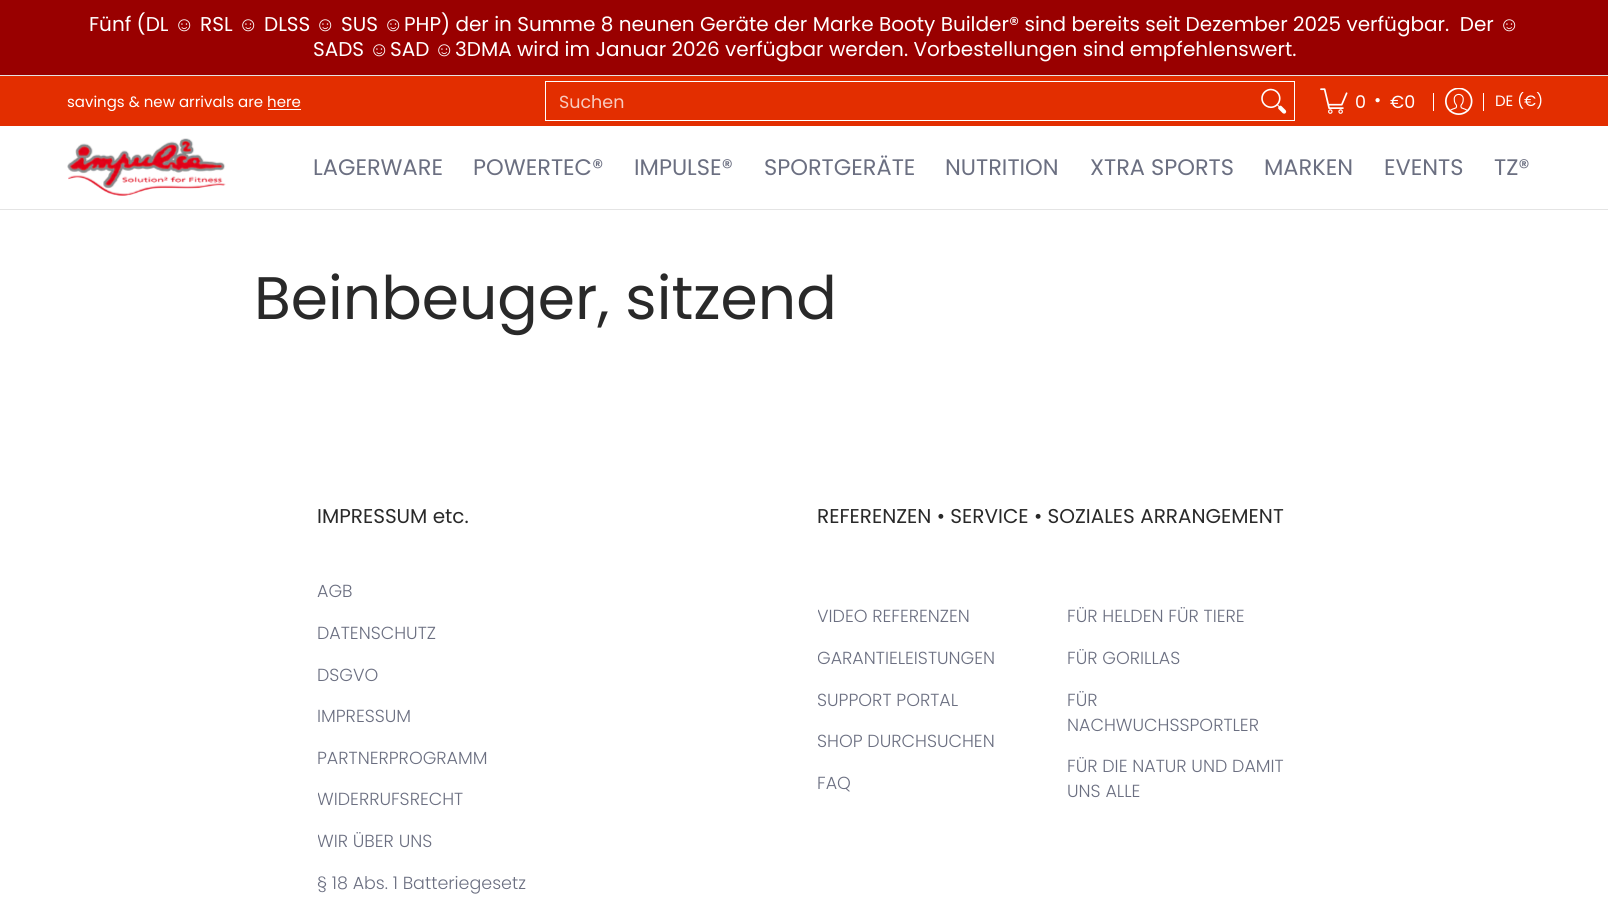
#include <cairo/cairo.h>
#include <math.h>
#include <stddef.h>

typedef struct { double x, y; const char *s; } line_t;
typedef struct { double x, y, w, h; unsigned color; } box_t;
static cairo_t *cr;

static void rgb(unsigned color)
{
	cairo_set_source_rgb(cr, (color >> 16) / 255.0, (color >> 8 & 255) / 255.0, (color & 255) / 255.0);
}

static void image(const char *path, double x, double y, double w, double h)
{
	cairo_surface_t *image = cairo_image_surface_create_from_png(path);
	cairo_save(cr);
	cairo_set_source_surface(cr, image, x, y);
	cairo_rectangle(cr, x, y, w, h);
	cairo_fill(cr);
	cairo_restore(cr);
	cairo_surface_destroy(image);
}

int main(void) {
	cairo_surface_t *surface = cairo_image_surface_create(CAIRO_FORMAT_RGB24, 1608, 914);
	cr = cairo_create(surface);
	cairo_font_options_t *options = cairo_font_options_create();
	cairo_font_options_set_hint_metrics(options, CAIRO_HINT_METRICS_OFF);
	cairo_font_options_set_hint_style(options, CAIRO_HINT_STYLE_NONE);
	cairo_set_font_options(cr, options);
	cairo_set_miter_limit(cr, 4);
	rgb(0xffffff);
	cairo_paint(cr);
	{
		static const box_t items[] = {
			{0, 0, 1608, 75, 0x990000},
			{0, 75, 1608, 1, 0xe4e4e4},
			{0, 76, 1608, 50, 0xe32e00},
			{268, 109, 33, 1, 0xffffff},
		};
		for (size_t i = 0; i < sizeof items / sizeof *items; i++) {
			rgb(items[i].color);
			cairo_rectangle(cr, items[i].x, items[i].y, items[i].w, items[i].h);
			cairo_fill(cr);
		}
	}
	cairo_rectangle(cr, 545.5, 81.5, 749, 39);
	cairo_set_line_width(cr, 1);
	cairo_stroke(cr);
	image("img/1.png", 1261, 88, 26, 26);
	image("img/2.png", 1320, 88, 28, 26);
	cairo_rectangle(cr, 1433, 93, 1, 18);
	cairo_fill(cr);
	image("img/3.png", 1445, 88, 28, 27);
	cairo_rectangle(cr, 1483, 93, 1, 18);
	cairo_fill(cr);
	rgb(0xe4e4e4);
	cairo_rectangle(cr, 0, 209, 1608, 1);
	cairo_fill(cr);
	image("img/4.png", 67, 138, 159, 58);
	cairo_select_font_face(cr, "Poppins", CAIRO_FONT_SLANT_NORMAL, CAIRO_FONT_WEIGHT_NORMAL);
	cairo_set_font_size(cr, 20);
	rgb(0xffffff);
	cairo_move_to(cr, 89, 31);
	cairo_show_text(cr, "Fünf (DL");
	cairo_select_font_face(cr, "Liberation Sans", CAIRO_FONT_SLANT_NORMAL, CAIRO_FONT_WEIGHT_NORMAL);
	cairo_move_to(cr, 174, 31);
	cairo_show_text(cr, "☺");
	cairo_select_font_face(cr, "Poppins", CAIRO_FONT_SLANT_NORMAL, CAIRO_FONT_WEIGHT_NORMAL);
	cairo_move_to(cr, 200, 31);
	cairo_show_text(cr, "RSL");
	cairo_select_font_face(cr, "Liberation Sans", CAIRO_FONT_SLANT_NORMAL, CAIRO_FONT_WEIGHT_NORMAL);
	cairo_move_to(cr, 238, 31);
	cairo_show_text(cr, "☺");
	cairo_select_font_face(cr, "Poppins", CAIRO_FONT_SLANT_NORMAL, CAIRO_FONT_WEIGHT_NORMAL);
	cairo_move_to(cr, 264, 31);
	cairo_show_text(cr, "DLSS");
	cairo_select_font_face(cr, "Liberation Sans", CAIRO_FONT_SLANT_NORMAL, CAIRO_FONT_WEIGHT_NORMAL);
	cairo_move_to(cr, 315, 31);
	cairo_show_text(cr, "☺");
	cairo_select_font_face(cr, "Poppins", CAIRO_FONT_SLANT_NORMAL, CAIRO_FONT_WEIGHT_NORMAL);
	cairo_move_to(cr, 341, 31);
	cairo_show_text(cr, "SUS");
	cairo_select_font_face(cr, "Liberation Sans", CAIRO_FONT_SLANT_NORMAL, CAIRO_FONT_WEIGHT_NORMAL);
	cairo_move_to(cr, 383, 31);
	cairo_show_text(cr, "☺");
	cairo_select_font_face(cr, "Poppins", CAIRO_FONT_SLANT_NORMAL, CAIRO_FONT_WEIGHT_NORMAL);
	cairo_move_to(cr, 404, 31);
	cairo_show_text(cr, "PHP) der in Summe 8 neunen Geräte der Marke Booty Builder® sind bereits seit Dezember 2025 verfügbar.  Der");
	cairo_select_font_face(cr, "Liberation Sans", CAIRO_FONT_SLANT_NORMAL, CAIRO_FONT_WEIGHT_NORMAL);
	cairo_move_to(cr, 1499, 31);
	cairo_show_text(cr, "☺");
	cairo_select_font_face(cr, "Poppins", CAIRO_FONT_SLANT_NORMAL, CAIRO_FONT_WEIGHT_NORMAL);
	cairo_move_to(cr, 313, 56);
	cairo_show_text(cr, "SADS");
	cairo_select_font_face(cr, "Liberation Sans", CAIRO_FONT_SLANT_NORMAL, CAIRO_FONT_WEIGHT_NORMAL);
	cairo_move_to(cr, 369, 56);
	cairo_show_text(cr, "☺");
	cairo_select_font_face(cr, "Poppins", CAIRO_FONT_SLANT_NORMAL, CAIRO_FONT_WEIGHT_NORMAL);
	cairo_move_to(cr, 390, 56);
	cairo_show_text(cr, "SAD");
	cairo_select_font_face(cr, "Liberation Sans", CAIRO_FONT_SLANT_NORMAL, CAIRO_FONT_WEIGHT_NORMAL);
	cairo_move_to(cr, 434, 56);
	cairo_show_text(cr, "☺");
	cairo_select_font_face(cr, "Poppins", CAIRO_FONT_SLANT_NORMAL, CAIRO_FONT_WEIGHT_NORMAL);
	cairo_move_to(cr, 455, 56);
	cairo_show_text(cr, "3DMA wird im Januar 2026 verfügbar werden. Vorbestellungen sind empfehlenswert.");
	cairo_set_font_size(cr, 15);
	cairo_move_to(cr, 67, 107);
	cairo_show_text(cr, "savings & new arrivals are here");
	cairo_set_font_size(cr, 17.5);
	rgb(0xf8cbbf);
	cairo_move_to(cr, 559, 108);
	cairo_show_text(cr, "Suchen");
	rgb(0xffffff);
	{
		static const line_t items[] = {
			{1355, 108, "0"},
			{1374, 106, "•"},
			{1390, 108, "€0"},
		};
		for (size_t i = 0; i < sizeof items / sizeof *items; i++) {
			cairo_move_to(cr, items[i].x, items[i].y);
			cairo_show_text(cr, items[i].s);
		}
	}
	cairo_set_font_size(cr, 15);
	cairo_move_to(cr, 1495, 106);
	cairo_show_text(cr, "DE (€)");
	cairo_set_font_size(cr, 22.5);
	rgb(0x6b6f81);
	{
		static const line_t items[] = {
			{313, 175, "LAGERWARE"},
			{473, 175, "POWERTEC®"},
			{634, 175, "IMPULSE®"},
			{764, 175, "SPORTGERÄTE"},
			{945, 175, "NUTRITION"},
			{1090, 175, "XTRA SPORTS"},
			{1264, 175, "MARKEN"},
			{1384, 175, "EVENTS"},
			{1494, 175, "TZ®"},
		};
		for (size_t i = 0; i < sizeof items / sizeof *items; i++) {
			cairo_move_to(cr, items[i].x, items[i].y);
			cairo_show_text(cr, items[i].s);
		}
	}
	cairo_set_font_size(cr, 60);
	rgb(0x292929);
	cairo_move_to(cr, 254, 319);
	cairo_show_text(cr, "Beinbeuger, sitzend");
	cairo_set_font_size(cr, 20);
	cairo_move_to(cr, 317, 523);
	cairo_show_text(cr, "IMPRESSUM etc.");
	cairo_select_font_face(cr, "Poppins Light", CAIRO_FONT_SLANT_NORMAL, CAIRO_FONT_WEIGHT_NORMAL);
	cairo_set_font_size(cr, 17.5);
	rgb(0x6b6f81);
	{
		static const line_t items[] = {
			{317, 597, "AGB"},
			{317, 639, "DATENSCHUTZ"},
			{317, 681, "DSGVO"},
			{317, 722, "IMPRESSUM"},
			{317, 764, "PARTNERPROGRAMM"},
		};
		for (size_t i = 0; i < sizeof items / sizeof *items; i++) {
			cairo_move_to(cr, items[i].x, items[i].y);
			cairo_show_text(cr, items[i].s);
		}
	}
	cairo_save(cr);
	cairo_rectangle(cr, 318, 570, 475, 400);
	cairo_clip(cr);
	cairo_move_to(cr, 317, 805);
	cairo_show_text(cr, "WIDERRUFSRECHT");
	cairo_move_to(cr, 317, 847);
	cairo_show_text(cr, "WIR ÜBER UNS");
	cairo_restore(cr);
	cairo_move_to(cr, 317, 889);
	cairo_show_text(cr, "§ 18 Abs. 1 Batteriegesetz");
	cairo_select_font_face(cr, "Poppins", CAIRO_FONT_SLANT_NORMAL, CAIRO_FONT_WEIGHT_NORMAL);
	cairo_set_font_size(cr, 20);
	rgb(0x292929);
	cairo_move_to(cr, 817, 523);
	cairo_show_text(cr, "REFERENZEN • SERVICE • SOZIALES ARRANGEMENT");
	cairo_save(cr);
	cairo_rectangle(cr, 818, 570, 473, 266);
	cairo_clip(cr);
	cairo_select_font_face(cr, "Poppins Light", CAIRO_FONT_SLANT_NORMAL, CAIRO_FONT_WEIGHT_NORMAL);
	cairo_set_font_size(cr, 17.5);
	rgb(0x6b6f81);
	cairo_move_to(cr, 817, 622);
	cairo_show_text(cr, "VIDEO REFERENZEN");
	cairo_move_to(cr, 817, 664);
	cairo_show_text(cr, "GARANTIELEISTUNGEN");
	cairo_restore(cr);
	cairo_select_font_face(cr, "Poppins Light", CAIRO_FONT_SLANT_NORMAL, CAIRO_FONT_WEIGHT_NORMAL);
	cairo_set_font_size(cr, 17.5);
	rgb(0x6b6f81);
	{
		static const line_t items[] = {
			{817, 706, "SUPPORT PORTAL"},
			{817, 747, "SHOP DURCHSUCHEN"},
			{817, 789, "FAQ"},
			{1067, 622, "FÜR HELDEN FÜR TIERE"},
			{1067, 664, "FÜR GORILLAS"},
			{1067, 706, "FÜR"},
			{1067, 731, "NACHWUCHSSPORTLER"},
			{1067, 772, "FÜR DIE NATUR UND DAMIT"},
			{1067, 797, "UNS ALLE"},
		};
		for (size_t i = 0; i < sizeof items / sizeof *items; i++) {
			cairo_move_to(cr, items[i].x, items[i].y);
			cairo_show_text(cr, items[i].s);
		}
	}
	cairo_surface_write_to_png(surface, "page.png");
	cairo_font_options_destroy(options);
	cairo_destroy(cr);
	cairo_surface_destroy(surface);
	return 0;
}
